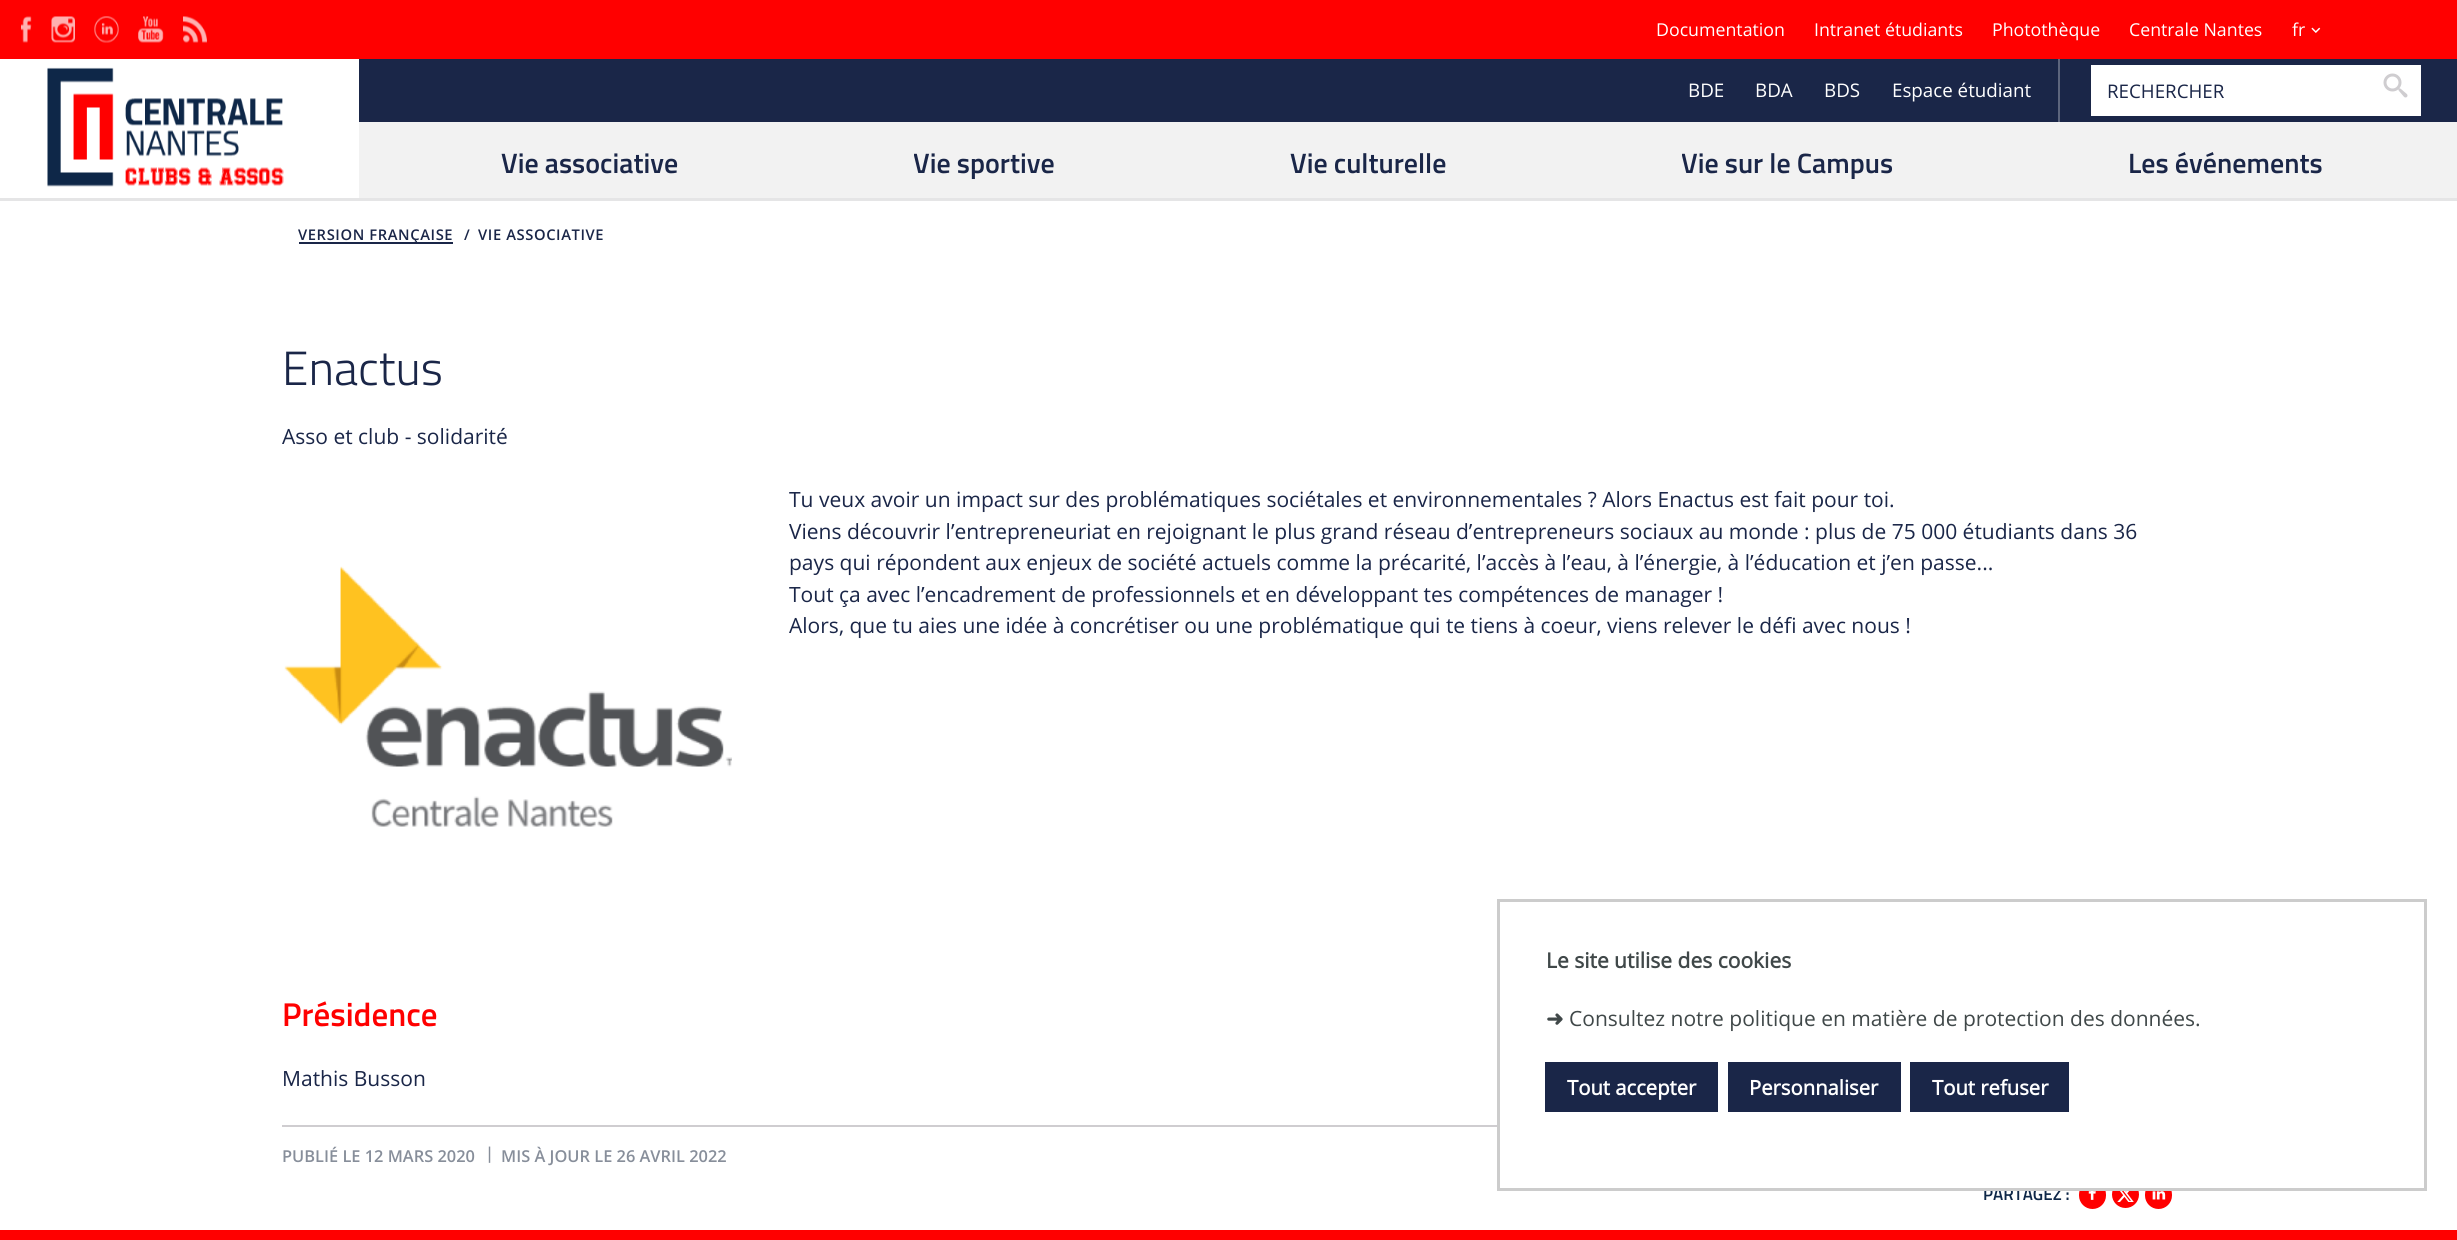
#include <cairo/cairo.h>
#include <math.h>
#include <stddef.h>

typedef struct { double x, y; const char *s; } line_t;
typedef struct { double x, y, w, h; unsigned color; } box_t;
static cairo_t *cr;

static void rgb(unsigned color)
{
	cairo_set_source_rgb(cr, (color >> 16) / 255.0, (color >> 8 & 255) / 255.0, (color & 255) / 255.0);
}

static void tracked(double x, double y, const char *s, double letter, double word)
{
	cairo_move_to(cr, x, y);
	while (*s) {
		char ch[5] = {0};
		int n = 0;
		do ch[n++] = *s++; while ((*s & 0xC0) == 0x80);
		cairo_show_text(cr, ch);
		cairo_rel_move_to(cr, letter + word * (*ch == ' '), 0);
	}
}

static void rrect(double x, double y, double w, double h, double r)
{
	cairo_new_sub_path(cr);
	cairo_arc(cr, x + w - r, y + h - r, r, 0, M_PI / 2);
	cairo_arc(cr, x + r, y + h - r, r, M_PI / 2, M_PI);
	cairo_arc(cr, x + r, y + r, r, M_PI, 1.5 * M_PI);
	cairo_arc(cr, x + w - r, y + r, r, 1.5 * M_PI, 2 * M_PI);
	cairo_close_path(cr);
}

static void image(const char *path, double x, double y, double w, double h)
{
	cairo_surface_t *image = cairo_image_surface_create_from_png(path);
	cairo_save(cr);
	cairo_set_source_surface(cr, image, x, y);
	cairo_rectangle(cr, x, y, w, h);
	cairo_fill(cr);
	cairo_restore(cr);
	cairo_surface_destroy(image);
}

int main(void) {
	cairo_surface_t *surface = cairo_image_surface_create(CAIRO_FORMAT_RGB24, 2457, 1240);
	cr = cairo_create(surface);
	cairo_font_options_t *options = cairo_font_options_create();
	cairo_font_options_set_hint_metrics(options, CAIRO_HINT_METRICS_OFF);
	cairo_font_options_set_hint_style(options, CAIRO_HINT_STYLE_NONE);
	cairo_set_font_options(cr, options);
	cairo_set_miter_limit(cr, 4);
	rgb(0xffffff);
	cairo_paint(cr);
	rgb(0xff0000);
	cairo_rectangle(cr, 0, 0, 2457, 59);
	cairo_fill(cr);
	image("img/1.png", 21, 16, 11, 27);
	image("img/2.png", 51, 16, 24, 27);
	image("img/3.png", 94, 16, 25, 27);
	image("img/4.png", 138, 16, 26, 27);
	image("img/5.png", 183, 16, 24, 27);
	image("img/6.png", 2311, 27, 10, 6);
	rgb(0xf2f2f2);
	cairo_rectangle(cr, 359, 122, 2098, 76);
	cairo_fill(cr);
	rgb(0xe5e5e6);
	cairo_rectangle(cr, 0, 198, 2457, 3);
	cairo_fill(cr);
	image("img/7.png", 47, 67, 237, 120);
	{
		static const box_t items[] = {
			{359, 59, 2098, 63, 0x1a2648},
			{2058, 59, 2, 63, 0x5c657d},
			{2091, 65, 330, 51, 0xffffff},
		};
		for (size_t i = 0; i < sizeof items / sizeof *items; i++) {
			rgb(items[i].color);
			cairo_rectangle(cr, items[i].x, items[i].y, items[i].w, items[i].h);
			cairo_fill(cr);
		}
	}
	image("img/8.png", 2383, 73, 25, 25);
	rgb(0x1a2648);
	cairo_rectangle(cr, 299, 242, 154, 2);
	cairo_fill(cr);
	image("img/9.png", 284, 566, 448, 261);
	rgb(0xcfcdd0);
	cairo_rectangle(cr, 282, 1125, 1215, 2);
	cairo_fill(cr);
	rgb(0xff0000);
	rrect(2079, 1181, 27, 28, 13.5);
	cairo_fill(cr);
	image("img/10.png", 2088, 1191, 8, 9);
	cairo_arc(cr, 2125.5, 1194.5, 13.5, 0, 2 * M_PI);
	cairo_fill(cr);
	image("img/11.png", 2117, 1191, 17, 11);
	rrect(2145, 1181, 27, 28, 13.5);
	cairo_fill(cr);
	image("img/12.png", 2152, 1191, 14, 9);
	rgb(0xffffff);
	cairo_rectangle(cr, 2080, 1181, 91, 7);
	cairo_fill(cr);
	rgb(0xff0000);
	cairo_rectangle(cr, 0, 1230, 2457, 10);
	cairo_fill(cr);
	cairo_select_font_face(cr, "Open Sans", CAIRO_FONT_SLANT_NORMAL, CAIRO_FONT_WEIGHT_NORMAL);
	cairo_set_font_size(cr, 17.75);
	rgb(0xffffff);
	{
		static const line_t items[] = {
			{1656, 36, "Documentation"},
			{1814, 36, "Intranet étudiants"},
			{1992, 36, "Photothèque"},
			{2129, 36, "Centrale Nantes"},
			{2292, 36, "fr"},
		};
		for (size_t i = 0; i < sizeof items / sizeof *items; i++) {
			cairo_move_to(cr, items[i].x, items[i].y);
			cairo_show_text(cr, items[i].s);
		}
	}
	cairo_set_font_size(cr, 18.75);
	{
		static const line_t items[] = {
			{1688, 97, "BDE"},
			{1755, 97, "BDA"},
			{1824, 97, "BDS"},
			{1892, 97, "Espace étudiant"},
		};
		for (size_t i = 0; i < sizeof items / sizeof *items; i++) {
			cairo_move_to(cr, items[i].x, items[i].y);
			cairo_show_text(cr, items[i].s);
		}
	}
	rgb(0x1a2648);
	cairo_move_to(cr, 2107, 98);
	cairo_show_text(cr, "RECHERCHER");
	cairo_select_font_face(cr, "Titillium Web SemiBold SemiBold", CAIRO_FONT_SLANT_NORMAL, CAIRO_FONT_WEIGHT_NORMAL);
	cairo_set_font_size(cr, 28);
	cairo_move_to(cr, 501, 173);
	cairo_show_text(cr, "Vie associative");
	cairo_save(cr);
	cairo_rectangle(cr, 914, 143, 141, 42);
	cairo_clip(cr);
	cairo_move_to(cr, 913, 173);
	cairo_show_text(cr, "Vie sportive");
	cairo_restore(cr);
	cairo_move_to(cr, 1290, 173);
	cairo_show_text(cr, "Vie culturelle");
	cairo_save(cr);
	cairo_rectangle(cr, 1682, 143, 211, 42);
	cairo_clip(cr);
	cairo_move_to(cr, 1681, 173);
	cairo_show_text(cr, "Vie sur le Campus");
	cairo_restore(cr);
	cairo_move_to(cr, 2128, 173);
	cairo_show_text(cr, "Les événements");
	cairo_select_font_face(cr, "Open Sans SemiBold", CAIRO_FONT_SLANT_NORMAL, CAIRO_FONT_WEIGHT_NORMAL);
	cairo_set_font_size(cr, 14.75);
	{
		static const line_t items[] = {
			{298, 240, "VERSION FRANÇAISE"},
			{464, 240, "/"},
			{478, 240, "VIE ASSOCIATIVE"},
		};
		for (size_t i = 0; i < sizeof items / sizeof *items; i++) {
			tracked(items[i].x, items[i].y, items[i].s, 0.6, 0);
		}
	}
	cairo_select_font_face(cr, "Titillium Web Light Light", CAIRO_FONT_SLANT_NORMAL, CAIRO_FONT_WEIGHT_NORMAL);
	cairo_set_font_size(cr, 48);
	cairo_move_to(cr, 282, 385);
	cairo_show_text(cr, "Enactus");
	cairo_select_font_face(cr, "Open Sans", CAIRO_FONT_SLANT_NORMAL, CAIRO_FONT_WEIGHT_NORMAL);
	cairo_set_font_size(cr, 21);
	{
		static const line_t items[] = {
			{282, 444, "Asso et club - solidarité"},
			{789, 507, "Tu veux avoir un impact sur des problématiques sociétales et environnementales ? Alors Enactus est fait pour toi."},
			{789, 539, "Viens découvrir l’entrepreneuriat en rejoignant le plus grand réseau d’entrepreneurs sociaux au monde : plus de 75 000 étudiants dans 36"},
			{789, 570, "pays qui répondent aux enjeux de société actuels comme la précarité, l’accès à l’eau, à l’énergie, à l’éducation et j’en passe..."},
			{789, 602, "Tout ça avec l’encadrement de professionnels et en développant tes compétences de manager !"},
			{789, 633, "Alors, que tu aies une idée à concrétiser ou une problématique qui te tiens à coeur, viens relever le défi avec nous !"},
		};
		for (size_t i = 0; i < sizeof items / sizeof *items; i++) {
			cairo_move_to(cr, items[i].x, items[i].y);
			cairo_show_text(cr, items[i].s);
		}
	}
	cairo_select_font_face(cr, "Titillium Web SemiBold SemiBold", CAIRO_FONT_SLANT_NORMAL, CAIRO_FONT_WEIGHT_NORMAL);
	cairo_set_font_size(cr, 33);
	rgb(0xff0000);
	cairo_move_to(cr, 282, 1026);
	cairo_show_text(cr, "Présidence");
	cairo_select_font_face(cr, "Open Sans", CAIRO_FONT_SLANT_NORMAL, CAIRO_FONT_WEIGHT_NORMAL);
	cairo_set_font_size(cr, 21);
	rgb(0x1a2648);
	cairo_move_to(cr, 282, 1086);
	cairo_show_text(cr, "Mathis Busson");
	cairo_select_font_face(cr, "Open Sans SemiBold", CAIRO_FONT_SLANT_NORMAL, CAIRO_FONT_WEIGHT_NORMAL);
	cairo_set_font_size(cr, 16.4);
	rgb(0x878e9a);
	{
		static const line_t items[] = {
			{282, 1162, "PUBLIÉ LE 12 MARS 2020"},
			{485, 1159, "|"},
			{501, 1162, "MIS À JOUR LE 26 AVRIL 2022"},
		};
		for (size_t i = 0; i < sizeof items / sizeof *items; i++) {
			cairo_move_to(cr, items[i].x, items[i].y);
			cairo_show_text(cr, items[i].s);
		}
	}
	cairo_select_font_face(cr, "Titillium Web SemiBold SemiBold", CAIRO_FONT_SLANT_NORMAL, CAIRO_FONT_WEIGHT_NORMAL);
	cairo_set_font_size(cr, 17);
	rgb(0x0e2748);
	cairo_move_to(cr, 1983, 1200);
	cairo_show_text(cr, "PARTAGEZ :");
	cairo_rectangle(cr, 1498.5, 900.5, 927, 289);
	rgb(0xcccccc);
	cairo_set_line_width(cr, 3);
	cairo_stroke(cr);
	cairo_select_font_face(cr, "Open Sans", CAIRO_FONT_SLANT_NORMAL, CAIRO_FONT_WEIGHT_BOLD);
	cairo_set_font_size(cr, 21);
	rgb(0x404849);
	cairo_move_to(cr, 1546, 968);
	cairo_show_text(cr, "Le site utilise des cookies");
	cairo_select_font_face(cr, "DejaVu Sans", CAIRO_FONT_SLANT_NORMAL, CAIRO_FONT_WEIGHT_BOLD);
	cairo_move_to(cr, 1546, 1026);
	cairo_show_text(cr, "➜");
	cairo_select_font_face(cr, "Open Sans", CAIRO_FONT_SLANT_NORMAL, CAIRO_FONT_WEIGHT_NORMAL);
	cairo_move_to(cr, 1569, 1026);
	cairo_show_text(cr, "Consultez notre politique en matière de protection des données.");
	rgb(0x1a2648);
	cairo_rectangle(cr, 1545, 1062, 173, 50);
	cairo_fill(cr);
	cairo_select_font_face(cr, "Open Sans", CAIRO_FONT_SLANT_NORMAL, CAIRO_FONT_WEIGHT_BOLD);
	cairo_set_font_size(cr, 20.25);
	rgb(0xffffff);
	cairo_move_to(cr, 1567, 1095);
	cairo_show_text(cr, "Tout accepter");
	rgb(0x1a2648);
	cairo_rectangle(cr, 1728, 1062, 173, 50);
	cairo_fill(cr);
	rgb(0xffffff);
	cairo_move_to(cr, 1749, 1095);
	cairo_show_text(cr, "Personnaliser");
	rgb(0x1a2648);
	cairo_rectangle(cr, 1910, 1062, 159, 50);
	cairo_fill(cr);
	rgb(0xffffff);
	cairo_move_to(cr, 1932, 1095);
	cairo_show_text(cr, "Tout refuser");
	cairo_surface_write_to_png(surface, "page.png");
	cairo_font_options_destroy(options);
	cairo_destroy(cr);
	cairo_surface_destroy(surface);
	return 0;
}
